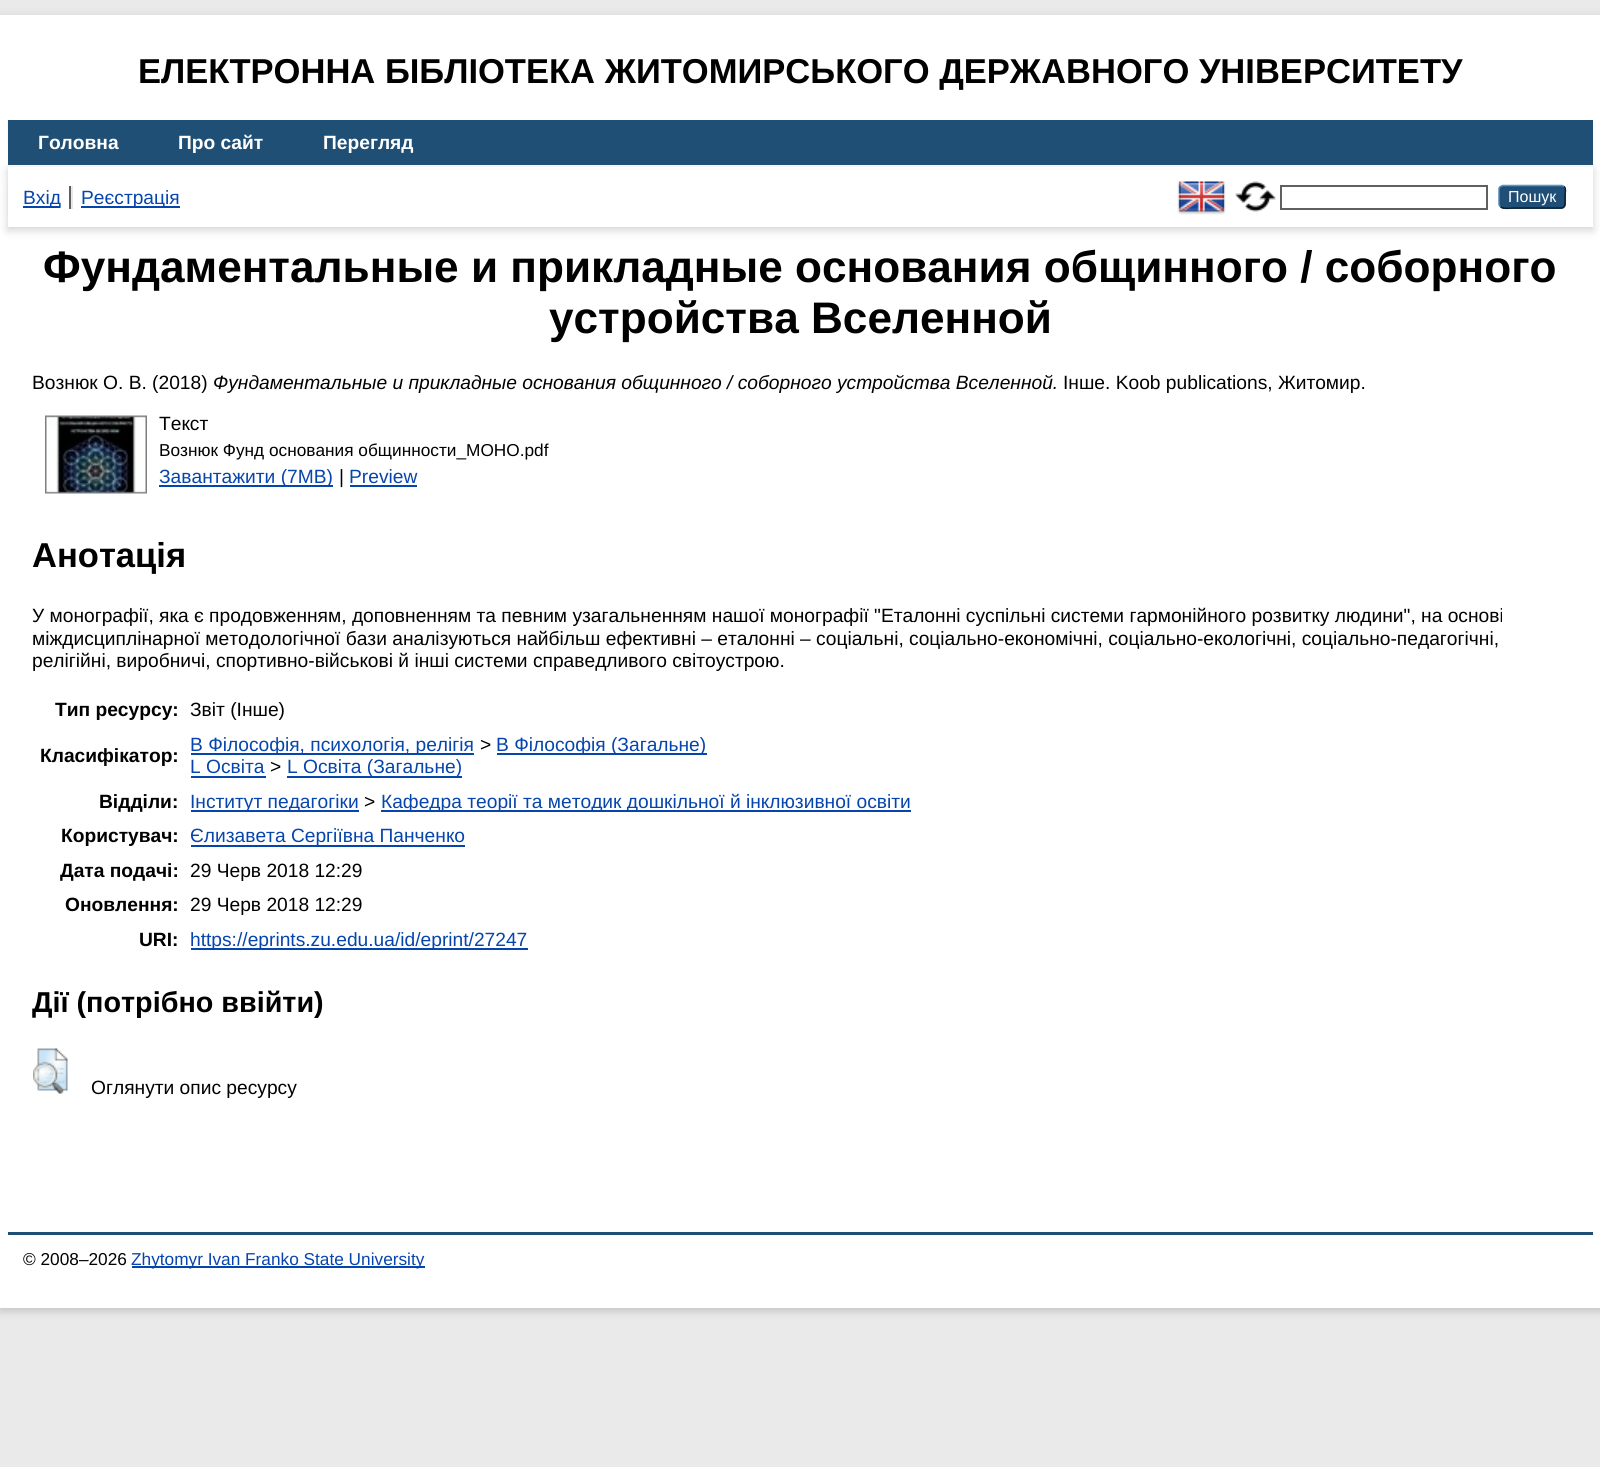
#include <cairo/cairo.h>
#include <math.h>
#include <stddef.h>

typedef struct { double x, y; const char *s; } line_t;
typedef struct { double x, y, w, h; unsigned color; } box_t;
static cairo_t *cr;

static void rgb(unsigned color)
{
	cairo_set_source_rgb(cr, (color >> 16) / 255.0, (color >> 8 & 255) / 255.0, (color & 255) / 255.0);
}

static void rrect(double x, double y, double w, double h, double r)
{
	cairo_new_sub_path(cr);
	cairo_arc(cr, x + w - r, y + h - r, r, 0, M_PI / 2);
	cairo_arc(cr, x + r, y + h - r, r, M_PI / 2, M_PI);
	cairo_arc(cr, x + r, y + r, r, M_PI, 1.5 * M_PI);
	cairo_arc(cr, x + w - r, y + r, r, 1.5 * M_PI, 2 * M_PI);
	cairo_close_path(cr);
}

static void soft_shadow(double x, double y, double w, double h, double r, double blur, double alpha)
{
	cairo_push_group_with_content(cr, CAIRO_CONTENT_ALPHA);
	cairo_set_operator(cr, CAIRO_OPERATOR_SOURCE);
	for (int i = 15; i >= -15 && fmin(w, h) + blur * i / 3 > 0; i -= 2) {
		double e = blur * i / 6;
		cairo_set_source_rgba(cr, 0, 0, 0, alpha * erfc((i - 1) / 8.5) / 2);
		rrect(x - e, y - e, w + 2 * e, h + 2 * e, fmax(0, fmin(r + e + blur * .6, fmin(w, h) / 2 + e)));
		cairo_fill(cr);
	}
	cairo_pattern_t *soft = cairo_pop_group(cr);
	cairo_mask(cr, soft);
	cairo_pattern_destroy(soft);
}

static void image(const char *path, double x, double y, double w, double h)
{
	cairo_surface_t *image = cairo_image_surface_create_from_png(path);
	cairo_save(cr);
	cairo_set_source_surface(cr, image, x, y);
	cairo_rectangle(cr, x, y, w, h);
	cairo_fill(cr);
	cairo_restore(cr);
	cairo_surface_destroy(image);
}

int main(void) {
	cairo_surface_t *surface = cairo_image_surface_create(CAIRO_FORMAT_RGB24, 1600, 1467);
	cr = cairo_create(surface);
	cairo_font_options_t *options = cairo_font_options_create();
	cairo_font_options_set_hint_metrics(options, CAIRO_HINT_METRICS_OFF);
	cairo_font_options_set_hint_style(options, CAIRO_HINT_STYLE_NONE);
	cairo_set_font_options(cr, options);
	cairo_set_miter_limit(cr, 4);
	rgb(0xeaeaea);
	cairo_paint(cr);
	rgb(0x646464);
	soft_shadow(0, 18, 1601, 1293, 0, 4.5, 0.3);
	rgb(0xffffff);
	cairo_rectangle(cr, 0, 15, 1600, 1293);
	cairo_fill(cr);
	image("img/1.png", 7, 120, 1, 107);
	rgb(0x204f76);
	cairo_rectangle(cr, 8, 120, 1585, 45);
	cairo_fill(cr);
	rgb(0x646464);
	soft_shadow(8, 170, 1585, 60, 0, 4.5, 0.3);
	{
		static const box_t items[] = {
			{8, 167, 1585, 60, 0xffffff},
			{69, 186, 2, 23, 0x606060},
			{23, 206, 37, 2, 0x0645ad},
			{71, 186, 2, 23, 0xe8e8e8},
			{81, 206, 99, 2, 0x0645ad},
		};
		for (size_t i = 0; i < sizeof items / sizeof *items; i++) {
			rgb(items[i].color);
			cairo_rectangle(cr, items[i].x, items[i].y, items[i].w, items[i].h);
			cairo_fill(cr);
		}
	}
	image("img/2.png", 1177, 181, 49, 34);
	image("img/3.png", 1234, 181, 42, 31);
	cairo_rectangle(cr, 1281, 186, 206, 23);
	rgb(0x606060);
	cairo_stroke(cr);
	rgb(0x1f4f76);
	rrect(1499, 185, 67, 24, 5);
	cairo_fill(cr);
	cairo_new_path(cr);
	cairo_move_to(cr, 1500.5, 186.5);
	cairo_line_to(cr, 1502.5, 185.5);
	cairo_line_to(cr, 1562, 185.5);
	cairo_line_to(cr, 1564, 186.5);
	rgb(0x5b97c7);
	cairo_set_line_width(cr, 1.5);
	cairo_stroke(cr);
	cairo_new_path(cr);
	cairo_move_to(cr, 1564, 186.5);
	cairo_curve_to(cr, 1566.5, 188.5, 1565, 193.5, 1565, 196.5);
	cairo_curve_to(cr, 1565, 209.5, 1565.5, 208, 1552, 208);
	cairo_line_to(cr, 1513, 208);
	cairo_curve_to(cr, 1512, 208, 1503, 209.5, 1500.5, 206.5);
	rgb(0x0d2131);
	cairo_stroke(cr);
	cairo_new_path(cr);
	cairo_move_to(cr, 1500.5, 206.5);
	cairo_curve_to(cr, 1499.5, 206, 1499, 205, 1499, 204);
	cairo_line_to(cr, 1499, 189);
	cairo_curve_to(cr, 1499, 188, 1499.5, 187, 1500.5, 186.5);
	rgb(0x5287b3);
	cairo_stroke(cr);
	image("img/4.png", 45, 415, 102, 79);
	{
		static const box_t items[] = {
			{159, 485, 174, 2, 0x0645ad},
			{350, 485, 67, 2, 0x0645ad},
			{191, 753, 283, 2, 0x0645ad},
			{497, 753, 210, 2, 0x0645ad},
			{191, 776, 75, 2, 0x0645ad},
			{287, 776, 175, 2, 0x0645ad},
			{191, 810, 168, 2, 0x0645ad},
			{381, 810, 530, 2, 0x0645ad},
			{191, 845, 274, 2, 0x0645ad},
			{191, 948, 337, 2, 0x0645ad},
		};
		for (size_t i = 0; i < sizeof items / sizeof *items; i++) {
			rgb(items[i].color);
			cairo_rectangle(cr, items[i].x, items[i].y, items[i].w, items[i].h);
			cairo_fill(cr);
		}
	}
	image("img/5.png", 33, 1048, 35, 46);
	rgb(0x204f76);
	cairo_rectangle(cr, 8, 1232, 1585, 3);
	cairo_fill(cr);
	rgb(0x0645ad);
	cairo_rectangle(cr, 132, 1266, 293, 2);
	cairo_fill(cr);
	cairo_select_font_face(cr, "Liberation Sans", CAIRO_FONT_SLANT_NORMAL, CAIRO_FONT_WEIGHT_BOLD);
	cairo_set_font_size(cr, 34.55);
	rgb(0x000000);
	cairo_move_to(cr, 138, 83);
	cairo_show_text(cr, "ЕЛЕКТРОННА БІБЛІОТЕКА ЖИТОМИРСЬКОГО ДЕРЖАВНОГО УНІВЕРСИТЕТУ");
	cairo_set_font_size(cr, 19.2);
	rgb(0xffffff);
	{
		static const line_t items[] = {
			{38, 149, "Головна"},
			{178, 149, "Про сайт"},
			{323, 149, "Перегляд"},
		};
		for (size_t i = 0; i < sizeof items / sizeof *items; i++) {
			cairo_move_to(cr, items[i].x, items[i].y);
			cairo_show_text(cr, items[i].s);
		}
	}
	cairo_select_font_face(cr, "Liberation Sans", CAIRO_FONT_SLANT_NORMAL, CAIRO_FONT_WEIGHT_NORMAL);
	rgb(0x0645ad);
	cairo_move_to(cr, 23, 204);
	cairo_show_text(cr, "Вхід");
	cairo_move_to(cr, 81, 204);
	cairo_show_text(cr, "Реєстрація");
	cairo_set_font_size(cr, 16);
	rgb(0xffffff);
	cairo_move_to(cr, 1508, 202);
	cairo_show_text(cr, "Пошук");
	cairo_select_font_face(cr, "Liberation Sans", CAIRO_FONT_SLANT_NORMAL, CAIRO_FONT_WEIGHT_BOLD);
	cairo_set_font_size(cr, 44.15);
	rgb(0x000000);
	cairo_move_to(cr, 43, 282);
	cairo_show_text(cr, "Фундаментальные и прикладные основания общинного / соборного");
	cairo_move_to(cr, 549, 333);
	cairo_show_text(cr, "устройства Вселенной");
	cairo_select_font_face(cr, "Liberation Sans", CAIRO_FONT_SLANT_NORMAL, CAIRO_FONT_WEIGHT_NORMAL);
	cairo_set_font_size(cr, 19.2);
	cairo_move_to(cr, 32, 389);
	cairo_show_text(cr, "Вознюк О. В. (2018)");
	cairo_select_font_face(cr, "Liberation Sans", CAIRO_FONT_SLANT_ITALIC, CAIRO_FONT_WEIGHT_NORMAL);
	cairo_move_to(cr, 213, 389);
	cairo_show_text(cr, "Фундаментальные и прикладные основания общинного / соборного устройства Вселенной.");
	cairo_select_font_face(cr, "Liberation Sans", CAIRO_FONT_SLANT_NORMAL, CAIRO_FONT_WEIGHT_NORMAL);
	cairo_move_to(cr, 1063, 389);
	cairo_show_text(cr, "Інше. Koob publications, Житомир.");
	cairo_move_to(cr, 159, 430);
	cairo_show_text(cr, "Текст");
	cairo_set_font_size(cr, 17.25);
	cairo_move_to(cr, 159, 456);
	cairo_show_text(cr, "Вознюк Фунд основания общинности_МОНО.pdf");
	cairo_set_font_size(cr, 19.2);
	rgb(0x0645ad);
	cairo_move_to(cr, 159, 483);
	cairo_show_text(cr, "Завантажити (7MB)");
	rgb(0x000000);
	cairo_move_to(cr, 339, 483);
	cairo_show_text(cr, "|");
	rgb(0x0645ad);
	cairo_move_to(cr, 349, 483);
	cairo_show_text(cr, "Preview");
	cairo_select_font_face(cr, "Liberation Sans", CAIRO_FONT_SLANT_NORMAL, CAIRO_FONT_WEIGHT_BOLD);
	cairo_set_font_size(cr, 34.55);
	rgb(0x000000);
	cairo_move_to(cr, 32, 567);
	cairo_show_text(cr, "Анотація");
	cairo_select_font_face(cr, "Liberation Sans", CAIRO_FONT_SLANT_NORMAL, CAIRO_FONT_WEIGHT_NORMAL);
	cairo_set_font_size(cr, 19.2);
	{
		static const line_t items[] = {
			{32, 622, "У монографії, яка є продовженням, доповненням та певним узагальненням нашої монографії \"Еталонні суспільні системи гармонійного розвитку людини\", на основі"},
			{32, 645, "міждисциплінарної методологічної бази аналізуються найбільш ефективні – еталонні – соціальні, соціально-економічні, соціально-екологічні, соціально-педагогічні,"},
			{32, 667, "релігійні, виробничі, спортивно-військові й інші системи справедливого світоустрою."},
		};
		for (size_t i = 0; i < sizeof items / sizeof *items; i++) {
			cairo_move_to(cr, items[i].x, items[i].y);
			cairo_show_text(cr, items[i].s);
		}
	}
	cairo_select_font_face(cr, "Liberation Sans", CAIRO_FONT_SLANT_NORMAL, CAIRO_FONT_WEIGHT_BOLD);
	cairo_move_to(cr, 55, 716);
	cairo_show_text(cr, "Тип ресурсу:");
	cairo_select_font_face(cr, "Liberation Sans", CAIRO_FONT_SLANT_NORMAL, CAIRO_FONT_WEIGHT_NORMAL);
	cairo_move_to(cr, 190, 716);
	cairo_show_text(cr, "Звіт (Інше)");
	cairo_select_font_face(cr, "Liberation Sans", CAIRO_FONT_SLANT_NORMAL, CAIRO_FONT_WEIGHT_BOLD);
	cairo_move_to(cr, 40, 762);
	cairo_show_text(cr, "Класифікатор:");
	cairo_select_font_face(cr, "Liberation Sans", CAIRO_FONT_SLANT_NORMAL, CAIRO_FONT_WEIGHT_NORMAL);
	rgb(0x0645ad);
	cairo_move_to(cr, 190, 751);
	cairo_show_text(cr, "B Філософія, психологія, релігія");
	rgb(0x000000);
	cairo_move_to(cr, 480, 751);
	cairo_show_text(cr, ">");
	rgb(0x0645ad);
	cairo_move_to(cr, 496, 751);
	cairo_show_text(cr, "B Філософія (Загальне)");
	cairo_move_to(cr, 190, 773);
	cairo_show_text(cr, "L Освіта");
	rgb(0x000000);
	cairo_move_to(cr, 270, 773);
	cairo_show_text(cr, ">");
	rgb(0x0645ad);
	cairo_move_to(cr, 287, 773);
	cairo_show_text(cr, "L Освіта (Загальне)");
	cairo_select_font_face(cr, "Liberation Sans", CAIRO_FONT_SLANT_NORMAL, CAIRO_FONT_WEIGHT_BOLD);
	rgb(0x000000);
	cairo_move_to(cr, 99, 808);
	cairo_show_text(cr, "Відділи:");
	cairo_select_font_face(cr, "Liberation Sans", CAIRO_FONT_SLANT_NORMAL, CAIRO_FONT_WEIGHT_NORMAL);
	rgb(0x0645ad);
	cairo_move_to(cr, 190, 808);
	cairo_show_text(cr, "Інститут педагогіки");
	rgb(0x000000);
	cairo_move_to(cr, 364, 808);
	cairo_show_text(cr, ">");
	rgb(0x0645ad);
	cairo_move_to(cr, 381, 808);
	cairo_show_text(cr, "Кафедра теорії та методик дошкільної й інклюзивної освіти");
	cairo_select_font_face(cr, "Liberation Sans", CAIRO_FONT_SLANT_NORMAL, CAIRO_FONT_WEIGHT_BOLD);
	rgb(0x000000);
	cairo_move_to(cr, 61, 842);
	cairo_show_text(cr, "Користувач:");
	cairo_select_font_face(cr, "Liberation Sans", CAIRO_FONT_SLANT_NORMAL, CAIRO_FONT_WEIGHT_NORMAL);
	rgb(0x0645ad);
	cairo_move_to(cr, 190, 842);
	cairo_show_text(cr, "Єлизавета Сергіївна Панченко");
	cairo_select_font_face(cr, "Liberation Sans", CAIRO_FONT_SLANT_NORMAL, CAIRO_FONT_WEIGHT_BOLD);
	rgb(0x000000);
	cairo_move_to(cr, 60, 877);
	cairo_show_text(cr, "Дата подачі:");
	cairo_select_font_face(cr, "Liberation Sans", CAIRO_FONT_SLANT_NORMAL, CAIRO_FONT_WEIGHT_NORMAL);
	cairo_move_to(cr, 190, 877);
	cairo_show_text(cr, "29 Черв 2018 12:29");
	cairo_select_font_face(cr, "Liberation Sans", CAIRO_FONT_SLANT_NORMAL, CAIRO_FONT_WEIGHT_BOLD);
	cairo_move_to(cr, 65, 911);
	cairo_show_text(cr, "Оновлення:");
	cairo_select_font_face(cr, "Liberation Sans", CAIRO_FONT_SLANT_NORMAL, CAIRO_FONT_WEIGHT_NORMAL);
	cairo_move_to(cr, 190, 911);
	cairo_show_text(cr, "29 Черв 2018 12:29");
	cairo_select_font_face(cr, "Liberation Sans", CAIRO_FONT_SLANT_NORMAL, CAIRO_FONT_WEIGHT_BOLD);
	cairo_move_to(cr, 139, 946);
	cairo_show_text(cr, "URI:");
	cairo_select_font_face(cr, "Liberation Sans", CAIRO_FONT_SLANT_NORMAL, CAIRO_FONT_WEIGHT_NORMAL);
	rgb(0x0645ad);
	cairo_move_to(cr, 190, 946);
	cairo_show_text(cr, "https://eprints.zu.edu.ua/id/eprint/27247");
	cairo_select_font_face(cr, "Liberation Sans", CAIRO_FONT_SLANT_NORMAL, CAIRO_FONT_WEIGHT_BOLD);
	cairo_set_font_size(cr, 28.75);
	rgb(0x000000);
	cairo_move_to(cr, 32, 1012);
	cairo_show_text(cr, "Дії (потрібно ввійти)");
	cairo_select_font_face(cr, "Liberation Sans", CAIRO_FONT_SLANT_NORMAL, CAIRO_FONT_WEIGHT_NORMAL);
	cairo_set_font_size(cr, 19.2);
	cairo_move_to(cr, 91, 1094);
	cairo_show_text(cr, "Оглянути опис ресурсу");
	cairo_set_font_size(cr, 17.25);
	cairo_move_to(cr, 23, 1265);
	cairo_show_text(cr, "© 2008–2026");
	rgb(0x0645ad);
	cairo_move_to(cr, 131, 1265);
	cairo_show_text(cr, "Zhytomyr Ivan Franko State University");
	cairo_surface_write_to_png(surface, "page.png");
	cairo_font_options_destroy(options);
	cairo_destroy(cr);
	cairo_surface_destroy(surface);
	return 0;
}
